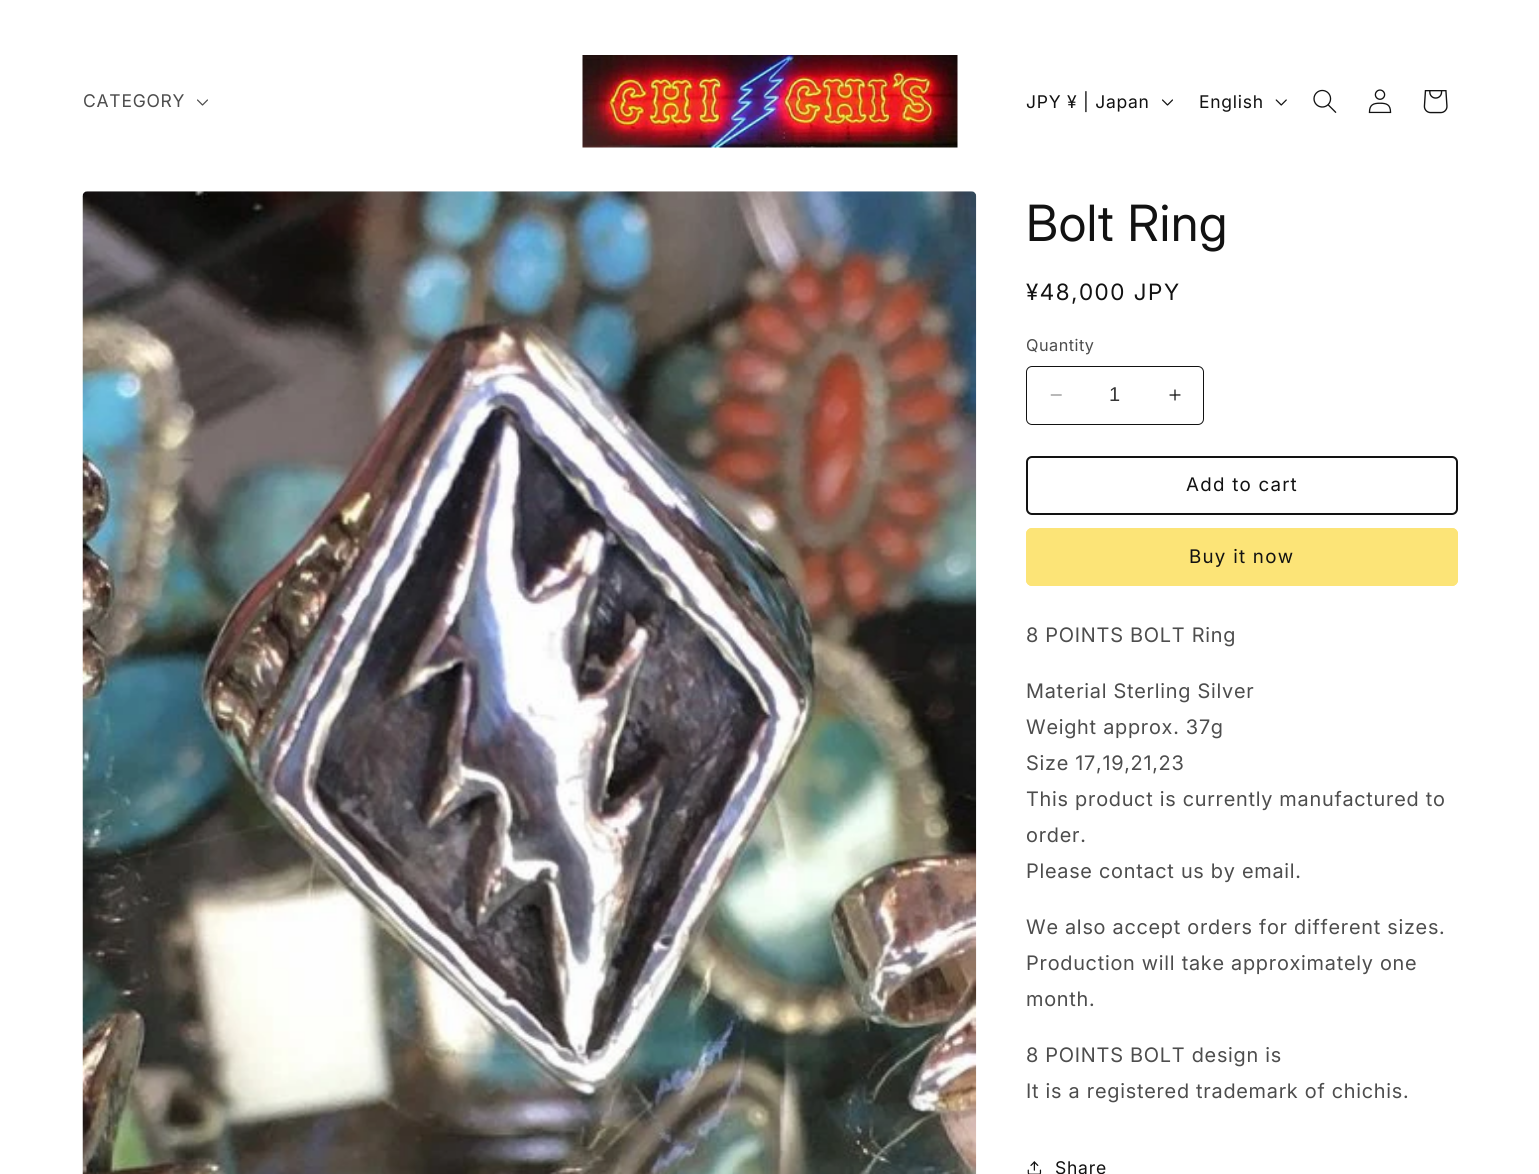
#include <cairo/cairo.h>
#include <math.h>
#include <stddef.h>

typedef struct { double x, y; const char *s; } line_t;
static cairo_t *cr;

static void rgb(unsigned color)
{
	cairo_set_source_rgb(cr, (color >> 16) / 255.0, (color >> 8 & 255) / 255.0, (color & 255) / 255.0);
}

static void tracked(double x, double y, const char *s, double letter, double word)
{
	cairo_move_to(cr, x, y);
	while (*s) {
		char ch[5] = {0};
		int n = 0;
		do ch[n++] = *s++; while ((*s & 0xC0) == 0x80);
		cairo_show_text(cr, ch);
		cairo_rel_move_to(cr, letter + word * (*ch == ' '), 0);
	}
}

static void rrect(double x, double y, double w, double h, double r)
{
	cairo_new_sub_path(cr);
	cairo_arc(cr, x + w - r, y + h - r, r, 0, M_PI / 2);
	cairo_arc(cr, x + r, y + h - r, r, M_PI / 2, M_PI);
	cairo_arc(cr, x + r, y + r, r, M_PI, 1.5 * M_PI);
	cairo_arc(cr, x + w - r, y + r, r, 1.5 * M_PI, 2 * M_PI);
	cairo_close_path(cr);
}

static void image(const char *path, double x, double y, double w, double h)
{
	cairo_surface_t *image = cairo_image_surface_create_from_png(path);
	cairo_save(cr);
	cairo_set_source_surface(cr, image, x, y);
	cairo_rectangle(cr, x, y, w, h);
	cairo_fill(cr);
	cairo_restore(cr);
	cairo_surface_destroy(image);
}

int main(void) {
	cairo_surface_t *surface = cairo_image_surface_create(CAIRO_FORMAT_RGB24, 1539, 1174);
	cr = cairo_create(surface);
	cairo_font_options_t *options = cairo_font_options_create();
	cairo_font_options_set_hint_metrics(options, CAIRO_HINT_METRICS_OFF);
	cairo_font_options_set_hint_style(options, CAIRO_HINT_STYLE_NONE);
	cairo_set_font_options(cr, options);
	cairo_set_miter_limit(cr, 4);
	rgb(0xffffff);
	cairo_paint(cr);
	image("img/1.png", 197, 99, 11, 7);
	image("img/2.png", 582, 55, 376, 93);
	image("img/3.png", 1162, 99, 11, 7);
	image("img/4.png", 1275, 99, 12, 7);
	image("img/5.png", 1313, 89, 24, 24);
	image("img/6.png", 1368, 89, 24, 25);
	image("img/7.png", 1423, 90, 25, 24);
	image("img/8.png", 82, 191, 895, 983);
	image("img/9.png", 1050, 394, 12, 2);
	image("img/10.png", 1169, 389, 12, 12);
	rrect(1026.5, 366.5, 177, 58, 5.5);
	rgb(0x121212);
	cairo_set_line_width(cr, 1);
	cairo_stroke(cr);
	rrect(1027, 457, 430, 57, 5);
	cairo_set_line_width(cr, 2);
	cairo_stroke(cr);
	rgb(0xfce477);
	rrect(1026, 528, 432, 58, 6);
	cairo_fill(cr);
	rrect(1026.5, 528.5, 431, 57, 5.5);
	cairo_set_line_width(cr, 1);
	cairo_stroke(cr);
	image("img/11.png", 1027, 1161, 15, 13);
	cairo_select_font_face(cr, "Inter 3", CAIRO_FONT_SLANT_NORMAL, CAIRO_FONT_WEIGHT_NORMAL);
	cairo_set_font_size(cr, 17.5);
	rgb(0x4d4d4d);
	tracked(83, 107, "CATEGORY", 0.75, 0);
	rgb(0x121212);
	tracked(1026, 108, "JPY ¥ | Japan", 0.75, 0);
	tracked(1199, 108, "English", 0.75, 0);
	cairo_select_font_face(cr, "Inter", CAIRO_FONT_SLANT_NORMAL, CAIRO_FONT_WEIGHT_NORMAL);
	cairo_set_font_size(cr, 50);
	tracked(1026, 241, "Bolt Ring", 0.75, 0);
	cairo_select_font_face(cr, "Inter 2", CAIRO_FONT_SLANT_NORMAL, CAIRO_FONT_WEIGHT_NORMAL);
	cairo_set_font_size(cr, 22.5);
	tracked(1026, 300, "¥48,000 JPY", 1.6, 0);
	cairo_select_font_face(cr, "Inter 3", CAIRO_FONT_SLANT_NORMAL, CAIRO_FONT_WEIGHT_NORMAL);
	cairo_set_font_size(cr, 16.25);
	rgb(0x4d4d4d);
	tracked(1026, 351, "Quantity", 0.5, 0);
	cairo_select_font_face(cr, "Liberation Sans", CAIRO_FONT_SLANT_NORMAL, CAIRO_FONT_WEIGHT_NORMAL);
	cairo_set_font_size(cr, 20);
	rgb(0x363636);
	cairo_move_to(cr, 1109, 401);
	cairo_show_text(cr, "1");
	cairo_select_font_face(cr, "Inter 3", CAIRO_FONT_SLANT_NORMAL, CAIRO_FONT_WEIGHT_NORMAL);
	cairo_set_font_size(cr, 18.75);
	rgb(0x121212);
	tracked(1186, 491, "Add to cart", 1.25, 0);
	tracked(1189, 563, "Buy it now", 1.25, 0);
	cairo_select_font_face(cr, "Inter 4", CAIRO_FONT_SLANT_NORMAL, CAIRO_FONT_WEIGHT_NORMAL);
	cairo_set_font_size(cr, 20);
	rgb(0x4d4d4d);
	{
		static const line_t items[] = {
			{1026, 642, "8 POINTS BOLT Ring"},
			{1026, 698, "Material Sterling Silver"},
			{1026, 734, "Weight approx. 37g"},
			{1026, 770, "Size 17,19,21,23"},
			{1026, 806, "This product is currently manufactured to"},
			{1026, 842, "order."},
			{1026, 878, "Please contact us by email."},
			{1026, 934, "We also accept orders for different sizes."},
			{1026, 970, "Production will take approximately one"},
			{1026, 1006, "month."},
			{1026, 1062, "8 POINTS BOLT design is"},
			{1026, 1098, "It is a registered trademark of chichis."},
		};
		for (size_t i = 0; i < sizeof items / sizeof *items; i++) {
			tracked(items[i].x, items[i].y, items[i].s, 0.75, 0);
		}
	}
	cairo_select_font_face(cr, "Inter 3", CAIRO_FONT_SLANT_NORMAL, CAIRO_FONT_WEIGHT_NORMAL);
	cairo_set_font_size(cr, 17.5);
	rgb(0x121212);
	tracked(1055, 1174, "Share", 0.75, 0);
	cairo_surface_write_to_png(surface, "page.png");
	cairo_font_options_destroy(options);
	cairo_destroy(cr);
	cairo_surface_destroy(surface);
	return 0;
}
